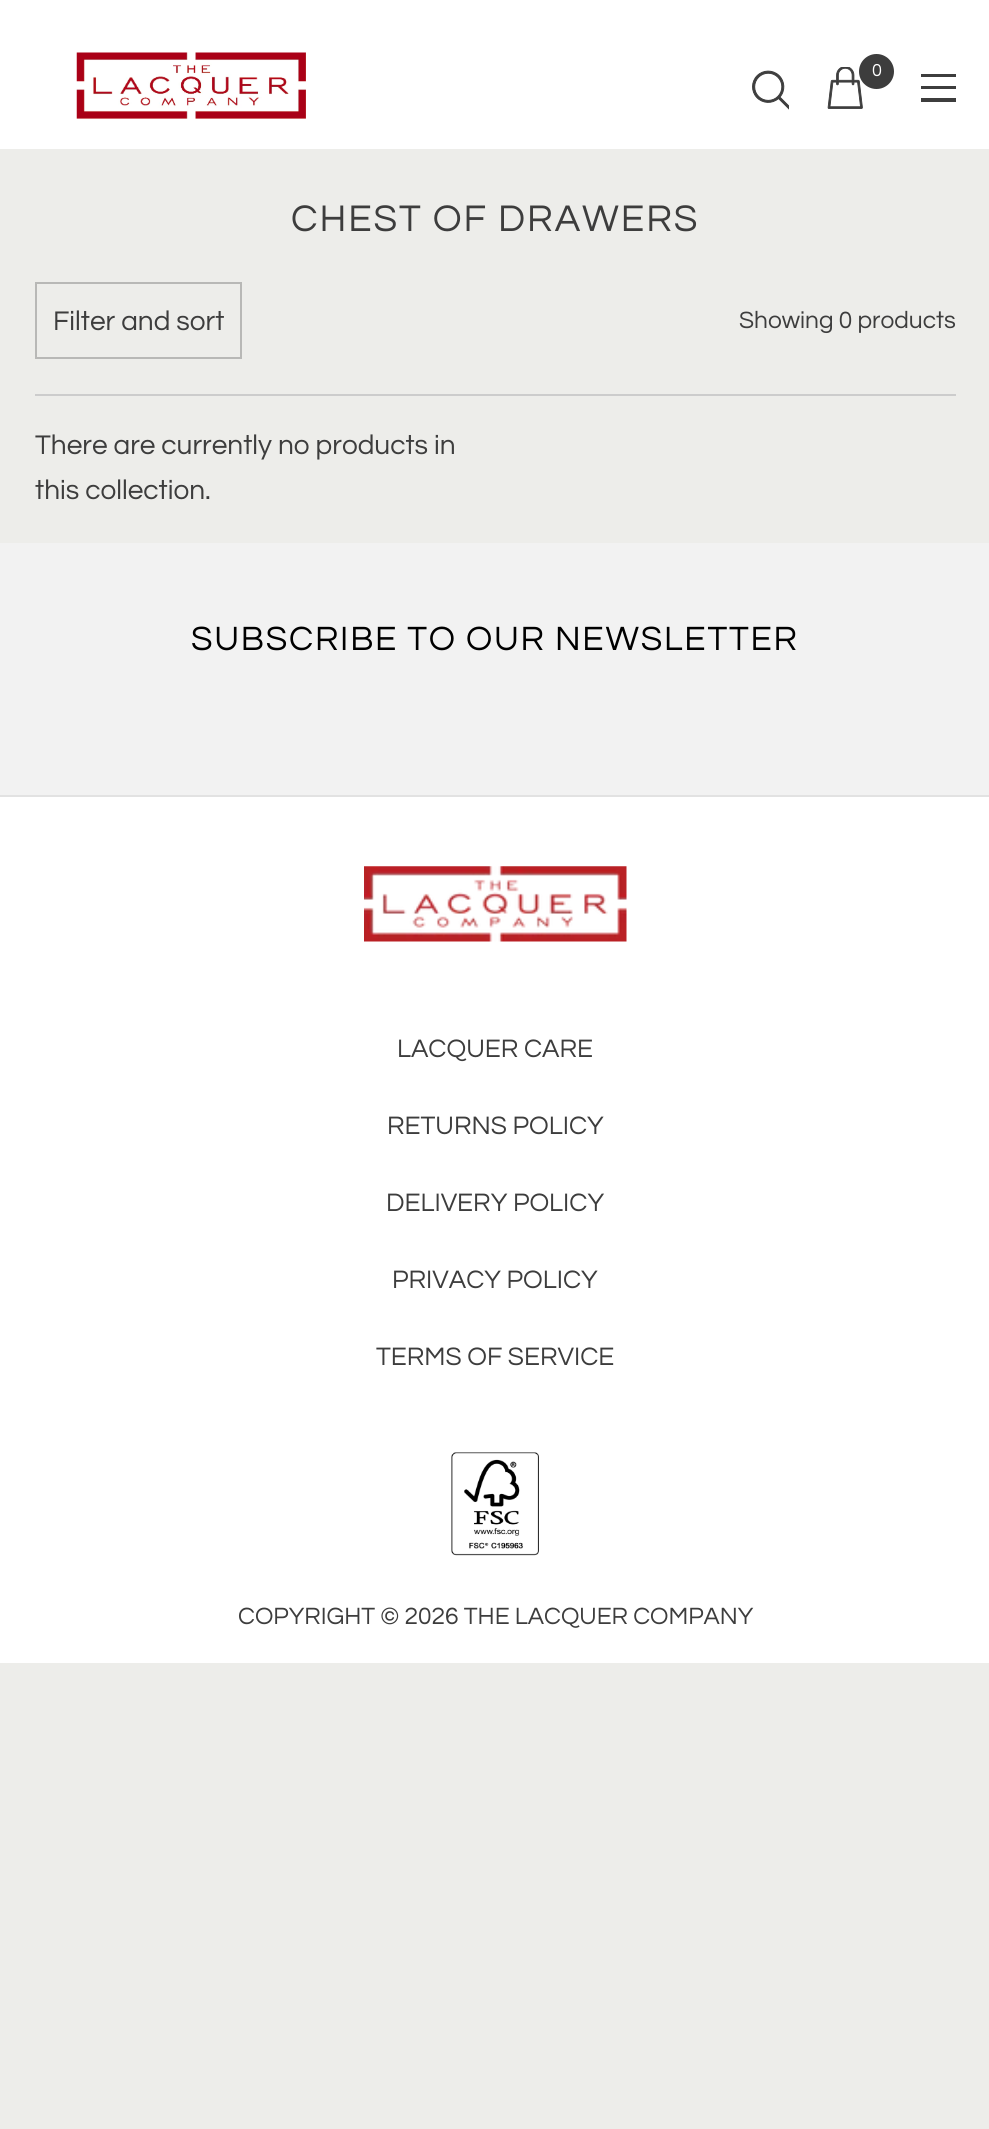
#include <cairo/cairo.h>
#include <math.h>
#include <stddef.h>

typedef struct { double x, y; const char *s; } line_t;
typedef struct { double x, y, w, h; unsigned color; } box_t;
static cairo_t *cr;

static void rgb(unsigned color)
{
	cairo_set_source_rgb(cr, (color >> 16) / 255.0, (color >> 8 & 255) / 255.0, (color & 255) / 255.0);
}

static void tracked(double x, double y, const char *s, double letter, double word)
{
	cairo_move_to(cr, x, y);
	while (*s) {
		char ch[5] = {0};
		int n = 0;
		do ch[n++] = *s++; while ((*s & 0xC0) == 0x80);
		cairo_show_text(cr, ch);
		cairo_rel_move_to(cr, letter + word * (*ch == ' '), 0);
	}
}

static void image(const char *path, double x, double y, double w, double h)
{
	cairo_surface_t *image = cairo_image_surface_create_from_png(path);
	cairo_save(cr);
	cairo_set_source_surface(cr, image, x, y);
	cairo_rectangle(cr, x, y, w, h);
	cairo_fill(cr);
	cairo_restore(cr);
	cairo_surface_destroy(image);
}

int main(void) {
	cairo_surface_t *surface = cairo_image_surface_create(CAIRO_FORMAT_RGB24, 989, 2129);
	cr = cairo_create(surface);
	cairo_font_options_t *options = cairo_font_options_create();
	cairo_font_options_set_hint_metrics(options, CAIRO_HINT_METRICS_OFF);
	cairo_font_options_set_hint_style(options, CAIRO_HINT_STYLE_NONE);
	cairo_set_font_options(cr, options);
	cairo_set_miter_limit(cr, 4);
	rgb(0xededea);
	cairo_paint(cr);
	rgb(0xffffff);
	cairo_rectangle(cr, 0, 0, 989, 149);
	cairo_fill(cr);
	image("img/1.png", 76, 52, 230, 67);
	image("img/2.png", 752, 70, 37, 40);
	rgb(0x3d3d3d);
	cairo_arc(cr, 876.5, 71.5, 17.5, 0, 2 * M_PI);
	cairo_fill(cr);
	image("img/3.png", 827, 67, 36, 42);
	{
		static const box_t items[] = {
			{921, 74, 35, 3, 0x3d3d3d},
			{921, 86, 35, 3, 0x3d3d3d},
			{921, 98, 35, 4, 0x3d3d3d},
			{35, 394, 921, 2, 0xcccccc},
		};
		for (size_t i = 0; i < sizeof items / sizeof *items; i++) {
			rgb(items[i].color);
			cairo_rectangle(cr, items[i].x, items[i].y, items[i].w, items[i].h);
			cairo_fill(cr);
		}
	}
	cairo_rectangle(cr, 36, 283, 205, 75);
	rgb(0xb8b8b6);
	cairo_stroke(cr);
	{
		static const box_t items[] = {
			{0, 543, 989, 252, 0xf2f2f2},
			{0, 797, 989, 866, 0xffffff},
			{0, 795, 989, 2, 0xe2e2e2},
		};
		for (size_t i = 0; i < sizeof items / sizeof *items; i++) {
			rgb(items[i].color);
			cairo_rectangle(cr, items[i].x, items[i].y, items[i].w, items[i].h);
			cairo_fill(cr);
		}
	}
	image("img/4.png", 364, 866, 263, 76);
	image("img/5.png", 451, 1452, 88, 104);
	cairo_select_font_face(cr, "Questrial", CAIRO_FONT_SLANT_NORMAL, CAIRO_FONT_WEIGHT_NORMAL);
	cairo_set_font_size(cr, 18);
	rgb(0xffffff);
	cairo_move_to(cr, 872, 76);
	cairo_show_text(cr, "0");
	cairo_set_font_size(cr, 38.5);
	rgb(0x3d3d3d);
	tracked(291, 231, "CHEST OF DRAWERS", 1.9, 0);
	cairo_set_font_size(cr, 28);
	cairo_move_to(cr, 53, 330);
	cairo_show_text(cr, "Filter and sort");
	cairo_set_font_size(cr, 24.5);
	cairo_move_to(cr, 739, 328);
	cairo_show_text(cr, "Showing 0 products");
	cairo_set_font_size(cr, 28);
	cairo_move_to(cr, 35, 454);
	cairo_show_text(cr, "There are currently no products in");
	cairo_move_to(cr, 35, 499);
	cairo_show_text(cr, "this collection.");
	cairo_set_font_size(cr, 35);
	rgb(0x000000);
	tracked(191, 650, "SUBSCRIBE TO OUR NEWSLETTER", 1.75, 0);
	cairo_set_font_size(cr, 26.25);
	rgb(0x3d3d3d);
	{
		static const line_t items[] = {
			{397, 1057, "LACQUER CARE"},
			{387, 1134, "RETURNS POLICY"},
			{386, 1211, "DELIVERY POLICY"},
			{392, 1288, "PRIVACY POLICY"},
			{376, 1365, "TERMS OF SERVICE"},
		};
		for (size_t i = 0; i < sizeof items / sizeof *items; i++) {
			cairo_move_to(cr, items[i].x, items[i].y);
			cairo_show_text(cr, items[i].s);
		}
	}
	cairo_set_font_size(cr, 24.5);
	cairo_move_to(cr, 238, 1624);
	cairo_show_text(cr, "COPYRIGHT © 2026 THE LACQUER COMPANY");
	cairo_surface_write_to_png(surface, "page.png");
	cairo_font_options_destroy(options);
	cairo_destroy(cr);
	cairo_surface_destroy(surface);
	return 0;
}
